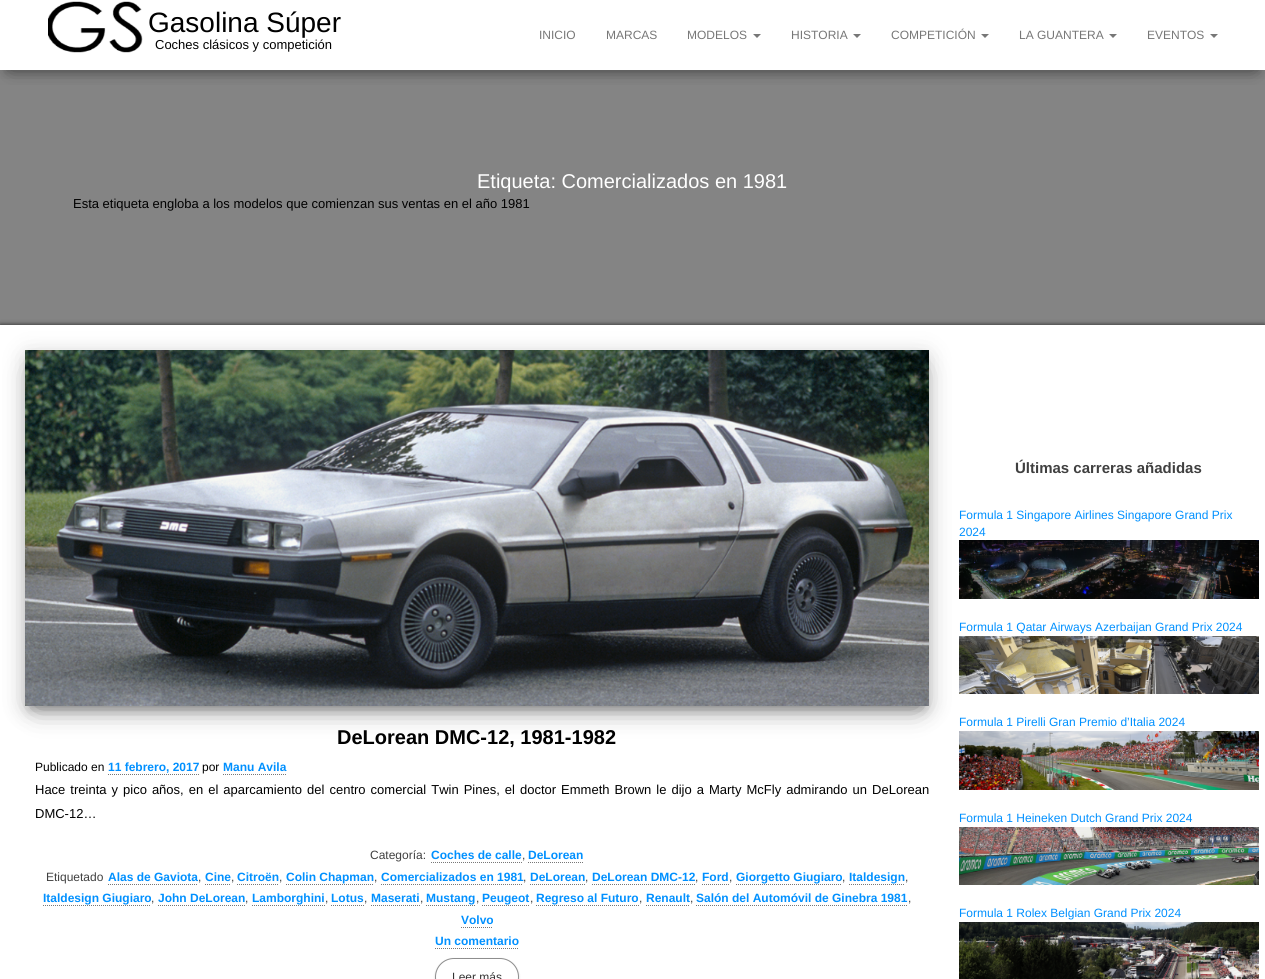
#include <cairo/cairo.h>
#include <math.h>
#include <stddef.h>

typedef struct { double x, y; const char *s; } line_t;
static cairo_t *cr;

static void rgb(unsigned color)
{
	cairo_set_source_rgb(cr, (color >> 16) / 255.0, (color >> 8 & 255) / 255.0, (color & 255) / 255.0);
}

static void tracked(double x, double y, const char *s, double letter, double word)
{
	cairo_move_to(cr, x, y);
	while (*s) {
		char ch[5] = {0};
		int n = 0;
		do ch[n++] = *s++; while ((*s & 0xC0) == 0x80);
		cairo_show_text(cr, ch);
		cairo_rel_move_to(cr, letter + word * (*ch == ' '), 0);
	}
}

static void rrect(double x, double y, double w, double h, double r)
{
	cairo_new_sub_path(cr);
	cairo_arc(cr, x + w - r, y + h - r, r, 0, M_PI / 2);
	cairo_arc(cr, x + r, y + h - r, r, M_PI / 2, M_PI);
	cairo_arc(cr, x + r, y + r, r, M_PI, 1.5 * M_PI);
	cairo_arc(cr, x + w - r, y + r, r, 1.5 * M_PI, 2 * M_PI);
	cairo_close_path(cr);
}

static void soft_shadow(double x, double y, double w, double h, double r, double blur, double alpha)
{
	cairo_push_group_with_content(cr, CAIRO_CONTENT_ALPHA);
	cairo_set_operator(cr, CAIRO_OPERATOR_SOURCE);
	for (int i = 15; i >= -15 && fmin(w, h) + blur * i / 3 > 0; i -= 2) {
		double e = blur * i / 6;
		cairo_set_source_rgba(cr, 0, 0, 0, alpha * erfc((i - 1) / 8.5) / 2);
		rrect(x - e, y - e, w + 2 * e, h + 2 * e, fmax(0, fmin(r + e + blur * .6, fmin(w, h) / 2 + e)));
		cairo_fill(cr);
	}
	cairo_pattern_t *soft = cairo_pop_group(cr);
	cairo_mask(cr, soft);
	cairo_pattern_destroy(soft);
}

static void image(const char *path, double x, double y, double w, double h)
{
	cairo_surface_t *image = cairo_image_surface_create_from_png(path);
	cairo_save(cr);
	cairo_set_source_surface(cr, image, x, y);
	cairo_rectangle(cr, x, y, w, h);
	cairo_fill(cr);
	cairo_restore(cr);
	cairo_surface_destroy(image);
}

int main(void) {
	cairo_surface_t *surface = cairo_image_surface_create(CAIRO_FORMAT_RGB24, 1265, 979);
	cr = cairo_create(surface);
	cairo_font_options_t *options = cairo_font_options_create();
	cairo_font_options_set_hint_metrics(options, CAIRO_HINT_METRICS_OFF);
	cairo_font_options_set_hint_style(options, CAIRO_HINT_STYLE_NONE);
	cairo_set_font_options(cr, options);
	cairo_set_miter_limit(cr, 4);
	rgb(0xffffff);
	cairo_paint(cr);
	rgb(0x848484);
	cairo_rectangle(cr, 0, 70, 1265, 255);
	cairo_fill(cr);
	cairo_save(cr);
	cairo_rectangle(cr, 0, 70, 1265, 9);
	cairo_clip(cr);
	rgb(0x000000);
	soft_shadow(5, 13, 1255, 60, 0, 5, 0.2);
	cairo_restore(cr);
	cairo_save(cr);
	cairo_rectangle(cr, 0, 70, 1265, 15);
	cairo_clip(cr);
	rgb(0x000000);
	soft_shadow(12, 22, 1241, 46, 0, 10, 0.42);
	cairo_restore(cr);
	image("img/1.png", 48, 1, 95, 52);
	rgb(0x777777);
	cairo_new_path(cr);
	cairo_move_to(cr, 753, 34);
	cairo_line_to(cr, 761, 34);
	cairo_line_to(cr, 757, 38);
	cairo_close_path(cr);
	cairo_fill(cr);
	cairo_new_path(cr);
	cairo_move_to(cr, 853, 34);
	cairo_line_to(cr, 861, 34);
	cairo_line_to(cr, 857, 38);
	cairo_close_path(cr);
	cairo_fill(cr);
	cairo_new_path(cr);
	cairo_move_to(cr, 981, 34);
	cairo_line_to(cr, 989, 34);
	cairo_line_to(cr, 985, 38);
	cairo_close_path(cr);
	cairo_fill(cr);
	cairo_new_path(cr);
	cairo_move_to(cr, 1109, 34);
	cairo_line_to(cr, 1117, 34);
	cairo_line_to(cr, 1113, 38);
	cairo_close_path(cr);
	cairo_fill(cr);
	cairo_new_path(cr);
	cairo_move_to(cr, 1210, 34);
	cairo_line_to(cr, 1218, 34);
	cairo_line_to(cr, 1214, 38);
	cairo_close_path(cr);
	cairo_fill(cr);
	rgb(0x000000);
	soft_shadow(0, 325, 1265, 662, 0, 2.5, 0.75);
	rgb(0xffffff);
	cairo_rectangle(cr, 0, 325, 1265, 654);
	cairo_fill(cr);
	rgb(0x000000);
	soft_shadow(25, 354, 904, 356, 0, 12.5, 0.12);
	soft_shadow(37, 372, 880, 332, 0, 14, 0.56);
	soft_shadow(30, 363, 894, 346, 0, 5, 0.2);
	image("img/2.png", 25, 350, 904, 356);
	cairo_new_path(cr);
	cairo_move_to(cr, 108, 774.5);
	cairo_line_to(cr, 199, 774.5);
	rgb(0x777777);
	cairo_set_line_width(cr, 1);
	cairo_set_dash(cr, (double[]){1, 1}, 2, 0);
	cairo_stroke(cr);
	cairo_new_path(cr);
	cairo_move_to(cr, 223, 774.5);
	cairo_line_to(cr, 287, 774.5);
	cairo_stroke(cr);
	cairo_new_path(cr);
	cairo_move_to(cr, 431, 862.5);
	cairo_line_to(cr, 522, 862.5);
	cairo_stroke(cr);
	cairo_new_path(cr);
	cairo_move_to(cr, 528, 862.5);
	cairo_line_to(cr, 584, 862.5);
	cairo_stroke(cr);
	cairo_new_path(cr);
	cairo_move_to(cr, 108, 884.5);
	cairo_line_to(cr, 198, 884.5);
	cairo_stroke(cr);
	cairo_new_path(cr);
	cairo_move_to(cr, 205, 884.5);
	cairo_line_to(cr, 231, 884.5);
	cairo_stroke(cr);
	cairo_new_path(cr);
	cairo_move_to(cr, 237, 884.5);
	cairo_line_to(cr, 279, 884.5);
	cairo_stroke(cr);
	cairo_new_path(cr);
	cairo_move_to(cr, 286, 884.5);
	cairo_line_to(cr, 374, 884.5);
	cairo_stroke(cr);
	cairo_new_path(cr);
	cairo_move_to(cr, 381, 884.5);
	cairo_line_to(cr, 523, 884.5);
	cairo_stroke(cr);
	cairo_new_path(cr);
	cairo_move_to(cr, 530, 884.5);
	cairo_line_to(cr, 585, 884.5);
	cairo_stroke(cr);
	cairo_new_path(cr);
	cairo_move_to(cr, 592, 884.5);
	cairo_line_to(cr, 695, 884.5);
	cairo_stroke(cr);
	cairo_new_path(cr);
	cairo_move_to(cr, 702, 884.5);
	cairo_line_to(cr, 729, 884.5);
	cairo_stroke(cr);
	cairo_new_path(cr);
	cairo_move_to(cr, 736, 884.5);
	cairo_line_to(cr, 842, 884.5);
	cairo_stroke(cr);
	cairo_new_path(cr);
	cairo_move_to(cr, 849, 884.5);
	cairo_line_to(cr, 905, 884.5);
	cairo_stroke(cr);
	cairo_new_path(cr);
	cairo_move_to(cr, 43, 905.5);
	cairo_line_to(cr, 151, 905.5);
	cairo_stroke(cr);
	cairo_new_path(cr);
	cairo_move_to(cr, 158, 905.5);
	cairo_line_to(cr, 245, 905.5);
	cairo_stroke(cr);
	cairo_new_path(cr);
	cairo_move_to(cr, 252, 905.5);
	cairo_line_to(cr, 325, 905.5);
	cairo_stroke(cr);
	cairo_new_path(cr);
	cairo_move_to(cr, 331, 905.5);
	cairo_line_to(cr, 364, 905.5);
	cairo_stroke(cr);
	cairo_new_path(cr);
	cairo_move_to(cr, 371, 905.5);
	cairo_line_to(cr, 420, 905.5);
	cairo_stroke(cr);
	cairo_new_path(cr);
	cairo_move_to(cr, 426, 905.5);
	cairo_line_to(cr, 476, 905.5);
	cairo_stroke(cr);
	cairo_new_path(cr);
	cairo_move_to(cr, 482, 905.5);
	cairo_line_to(cr, 530, 905.5);
	cairo_stroke(cr);
	cairo_new_path(cr);
	cairo_move_to(cr, 536, 905.5);
	cairo_line_to(cr, 639, 905.5);
	cairo_stroke(cr);
	cairo_new_path(cr);
	cairo_move_to(cr, 646, 905.5);
	cairo_line_to(cr, 690, 905.5);
	cairo_stroke(cr);
	cairo_new_path(cr);
	cairo_move_to(cr, 696, 905.5);
	cairo_line_to(cr, 908, 905.5);
	cairo_stroke(cr);
	cairo_new_path(cr);
	cairo_move_to(cr, 461, 927.5);
	cairo_line_to(cr, 493, 927.5);
	cairo_stroke(cr);
	cairo_new_path(cr);
	cairo_move_to(cr, 435, 948.5);
	cairo_line_to(cr, 519, 948.5);
	cairo_stroke(cr);
	rgb(0x000000);
	soft_shadow(435, 959, 84, 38, 19, 1, 0.15);
	rgb(0xffffff);
	rrect(435.5, 958.5, 83, 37, 18.5);
	cairo_fill_preserve(cr);
	rgb(0x8e8e8e);
	cairo_set_dash(cr, NULL, 0, 0);
	cairo_stroke(cr);
	image("img/3.png", 959, 540, 300, 59);
	image("img/4.png", 959, 636, 300, 58);
	image("img/5.png", 959, 731, 300, 59);
	image("img/6.png", 959, 827, 300, 58);
	image("img/7.png", 959, 922, 300, 57);
	cairo_select_font_face(cr, "Liberation Sans", CAIRO_FONT_SLANT_NORMAL, CAIRO_FONT_WEIGHT_NORMAL);
	cairo_set_font_size(cr, 28);
	rgb(0x000000);
	cairo_move_to(cr, 148, 32);
	cairo_show_text(cr, "Gasolina Súper");
	cairo_set_font_size(cr, 13);
	cairo_move_to(cr, 155, 49);
	cairo_show_text(cr, "Coches clásicos y competición");
	cairo_set_font_size(cr, 12);
	rgb(0x777777);
	{
		static const line_t items[] = {
			{539, 39, "INICIO"},
			{606, 39, "MARCAS"},
			{687, 39, "MODELOS"},
			{791, 39, "HISTORIA"},
			{891, 39, "COMPETICIÓN"},
			{1019, 39, "LA GUANTERA"},
			{1147, 39, "EVENTOS"},
		};
		for (size_t i = 0; i < sizeof items / sizeof *items; i++) {
			cairo_move_to(cr, items[i].x, items[i].y);
			cairo_show_text(cr, items[i].s);
		}
	}
	cairo_set_font_size(cr, 20);
	rgb(0xffffff);
	cairo_move_to(cr, 477, 188);
	cairo_show_text(cr, "Etiqueta: Comercializados en 1981");
	cairo_set_font_size(cr, 13);
	rgb(0x000000);
	cairo_move_to(cr, 73, 208);
	cairo_show_text(cr, "Esta etiqueta engloba a los modelos que comienzan sus ventas en el año 1981");
	cairo_select_font_face(cr, "Liberation Sans", CAIRO_FONT_SLANT_NORMAL, CAIRO_FONT_WEIGHT_BOLD);
	cairo_set_font_size(cr, 20);
	cairo_move_to(cr, 337, 744);
	cairo_show_text(cr, "DeLorean DMC-12, 1981-1982");
	cairo_select_font_face(cr, "Liberation Sans", CAIRO_FONT_SLANT_NORMAL, CAIRO_FONT_WEIGHT_NORMAL);
	cairo_set_font_size(cr, 12);
	cairo_move_to(cr, 35, 771);
	cairo_show_text(cr, "Publicado en");
	cairo_select_font_face(cr, "Liberation Sans", CAIRO_FONT_SLANT_NORMAL, CAIRO_FONT_WEIGHT_BOLD);
	rgb(0x0090ff);
	cairo_move_to(cr, 108, 771);
	cairo_show_text(cr, "11 febrero, 2017");
	cairo_select_font_face(cr, "Liberation Sans", CAIRO_FONT_SLANT_NORMAL, CAIRO_FONT_WEIGHT_NORMAL);
	rgb(0x000000);
	cairo_move_to(cr, 202, 771);
	cairo_show_text(cr, "por");
	cairo_select_font_face(cr, "Liberation Sans", CAIRO_FONT_SLANT_NORMAL, CAIRO_FONT_WEIGHT_BOLD);
	rgb(0x0090ff);
	cairo_move_to(cr, 223, 771);
	cairo_show_text(cr, "Manu Avila");
	cairo_select_font_face(cr, "Liberation Sans", CAIRO_FONT_SLANT_NORMAL, CAIRO_FONT_WEIGHT_NORMAL);
	cairo_set_font_size(cr, 13);
	rgb(0x000000);
	tracked(35, 794, "Hace treinta y pico años, en el aparcamiento del centro comercial Twin Pines, el doctor Emmeth Brown le dijo a Marty McFly admirando un DeLorean", 0, 1.4);
	cairo_move_to(cr, 35, 818);
	cairo_show_text(cr, "DMC-12…");
	cairo_set_font_size(cr, 12);
	rgb(0x404040);
	cairo_move_to(cr, 370, 859);
	cairo_show_text(cr, "Categoría:");
	cairo_select_font_face(cr, "Liberation Sans", CAIRO_FONT_SLANT_NORMAL, CAIRO_FONT_WEIGHT_BOLD);
	rgb(0x0090ff);
	cairo_move_to(cr, 431, 859);
	cairo_show_text(cr, "Coches de calle");
	cairo_select_font_face(cr, "Liberation Sans", CAIRO_FONT_SLANT_NORMAL, CAIRO_FONT_WEIGHT_NORMAL);
	rgb(0x404040);
	cairo_move_to(cr, 522, 859);
	cairo_show_text(cr, ",");
	cairo_select_font_face(cr, "Liberation Sans", CAIRO_FONT_SLANT_NORMAL, CAIRO_FONT_WEIGHT_BOLD);
	rgb(0x0090ff);
	cairo_move_to(cr, 528, 859);
	cairo_show_text(cr, "DeLorean");
	cairo_select_font_face(cr, "Liberation Sans", CAIRO_FONT_SLANT_NORMAL, CAIRO_FONT_WEIGHT_NORMAL);
	rgb(0x404040);
	cairo_move_to(cr, 46, 881);
	cairo_show_text(cr, "Etiquetado");
	cairo_select_font_face(cr, "Liberation Sans", CAIRO_FONT_SLANT_NORMAL, CAIRO_FONT_WEIGHT_BOLD);
	rgb(0x0090ff);
	cairo_move_to(cr, 108, 881);
	cairo_show_text(cr, "Alas de Gaviota");
	cairo_select_font_face(cr, "Liberation Sans", CAIRO_FONT_SLANT_NORMAL, CAIRO_FONT_WEIGHT_NORMAL);
	rgb(0x404040);
	cairo_move_to(cr, 198, 881);
	cairo_show_text(cr, ",");
	cairo_select_font_face(cr, "Liberation Sans", CAIRO_FONT_SLANT_NORMAL, CAIRO_FONT_WEIGHT_BOLD);
	rgb(0x0090ff);
	cairo_move_to(cr, 205, 881);
	cairo_show_text(cr, "Cine");
	cairo_select_font_face(cr, "Liberation Sans", CAIRO_FONT_SLANT_NORMAL, CAIRO_FONT_WEIGHT_NORMAL);
	rgb(0x404040);
	cairo_move_to(cr, 231, 881);
	cairo_show_text(cr, ",");
	cairo_select_font_face(cr, "Liberation Sans", CAIRO_FONT_SLANT_NORMAL, CAIRO_FONT_WEIGHT_BOLD);
	rgb(0x0090ff);
	cairo_move_to(cr, 237, 881);
	cairo_show_text(cr, "Citroën");
	cairo_select_font_face(cr, "Liberation Sans", CAIRO_FONT_SLANT_NORMAL, CAIRO_FONT_WEIGHT_NORMAL);
	rgb(0x404040);
	cairo_move_to(cr, 279, 881);
	cairo_show_text(cr, ",");
	cairo_select_font_face(cr, "Liberation Sans", CAIRO_FONT_SLANT_NORMAL, CAIRO_FONT_WEIGHT_BOLD);
	rgb(0x0090ff);
	cairo_move_to(cr, 286, 881);
	cairo_show_text(cr, "Colin Chapman");
	cairo_select_font_face(cr, "Liberation Sans", CAIRO_FONT_SLANT_NORMAL, CAIRO_FONT_WEIGHT_NORMAL);
	rgb(0x404040);
	cairo_move_to(cr, 374, 881);
	cairo_show_text(cr, ",");
	cairo_select_font_face(cr, "Liberation Sans", CAIRO_FONT_SLANT_NORMAL, CAIRO_FONT_WEIGHT_BOLD);
	rgb(0x0090ff);
	cairo_move_to(cr, 381, 881);
	cairo_show_text(cr, "Comercializados en 1981");
	cairo_select_font_face(cr, "Liberation Sans", CAIRO_FONT_SLANT_NORMAL, CAIRO_FONT_WEIGHT_NORMAL);
	rgb(0x404040);
	cairo_move_to(cr, 523, 881);
	cairo_show_text(cr, ",");
	cairo_select_font_face(cr, "Liberation Sans", CAIRO_FONT_SLANT_NORMAL, CAIRO_FONT_WEIGHT_BOLD);
	rgb(0x0090ff);
	cairo_move_to(cr, 530, 881);
	cairo_show_text(cr, "DeLorean");
	cairo_select_font_face(cr, "Liberation Sans", CAIRO_FONT_SLANT_NORMAL, CAIRO_FONT_WEIGHT_NORMAL);
	rgb(0x404040);
	cairo_move_to(cr, 585, 881);
	cairo_show_text(cr, ",");
	cairo_select_font_face(cr, "Liberation Sans", CAIRO_FONT_SLANT_NORMAL, CAIRO_FONT_WEIGHT_BOLD);
	rgb(0x0090ff);
	cairo_move_to(cr, 592, 881);
	cairo_show_text(cr, "DeLorean DMC-12");
	cairo_select_font_face(cr, "Liberation Sans", CAIRO_FONT_SLANT_NORMAL, CAIRO_FONT_WEIGHT_NORMAL);
	rgb(0x404040);
	cairo_move_to(cr, 695, 881);
	cairo_show_text(cr, ",");
	cairo_select_font_face(cr, "Liberation Sans", CAIRO_FONT_SLANT_NORMAL, CAIRO_FONT_WEIGHT_BOLD);
	rgb(0x0090ff);
	cairo_move_to(cr, 702, 881);
	cairo_show_text(cr, "Ford");
	cairo_select_font_face(cr, "Liberation Sans", CAIRO_FONT_SLANT_NORMAL, CAIRO_FONT_WEIGHT_NORMAL);
	rgb(0x404040);
	cairo_move_to(cr, 729, 881);
	cairo_show_text(cr, ",");
	cairo_select_font_face(cr, "Liberation Sans", CAIRO_FONT_SLANT_NORMAL, CAIRO_FONT_WEIGHT_BOLD);
	rgb(0x0090ff);
	cairo_move_to(cr, 736, 881);
	cairo_show_text(cr, "Giorgetto Giugiaro");
	cairo_select_font_face(cr, "Liberation Sans", CAIRO_FONT_SLANT_NORMAL, CAIRO_FONT_WEIGHT_NORMAL);
	rgb(0x404040);
	cairo_move_to(cr, 842, 881);
	cairo_show_text(cr, ",");
	cairo_select_font_face(cr, "Liberation Sans", CAIRO_FONT_SLANT_NORMAL, CAIRO_FONT_WEIGHT_BOLD);
	rgb(0x0090ff);
	cairo_move_to(cr, 849, 881);
	cairo_show_text(cr, "Italdesign");
	cairo_select_font_face(cr, "Liberation Sans", CAIRO_FONT_SLANT_NORMAL, CAIRO_FONT_WEIGHT_NORMAL);
	rgb(0x404040);
	cairo_move_to(cr, 905, 881);
	cairo_show_text(cr, ",");
	cairo_select_font_face(cr, "Liberation Sans", CAIRO_FONT_SLANT_NORMAL, CAIRO_FONT_WEIGHT_BOLD);
	rgb(0x0090ff);
	cairo_move_to(cr, 43, 902);
	cairo_show_text(cr, "Italdesign Giugiaro");
	cairo_select_font_face(cr, "Liberation Sans", CAIRO_FONT_SLANT_NORMAL, CAIRO_FONT_WEIGHT_NORMAL);
	rgb(0x404040);
	cairo_move_to(cr, 151, 902);
	cairo_show_text(cr, ",");
	cairo_select_font_face(cr, "Liberation Sans", CAIRO_FONT_SLANT_NORMAL, CAIRO_FONT_WEIGHT_BOLD);
	rgb(0x0090ff);
	cairo_move_to(cr, 158, 902);
	cairo_show_text(cr, "John DeLorean");
	cairo_select_font_face(cr, "Liberation Sans", CAIRO_FONT_SLANT_NORMAL, CAIRO_FONT_WEIGHT_NORMAL);
	rgb(0x404040);
	cairo_move_to(cr, 245, 902);
	cairo_show_text(cr, ",");
	cairo_select_font_face(cr, "Liberation Sans", CAIRO_FONT_SLANT_NORMAL, CAIRO_FONT_WEIGHT_BOLD);
	rgb(0x0090ff);
	cairo_move_to(cr, 252, 902);
	cairo_show_text(cr, "Lamborghini");
	cairo_select_font_face(cr, "Liberation Sans", CAIRO_FONT_SLANT_NORMAL, CAIRO_FONT_WEIGHT_NORMAL);
	rgb(0x404040);
	cairo_move_to(cr, 325, 902);
	cairo_show_text(cr, ",");
	cairo_select_font_face(cr, "Liberation Sans", CAIRO_FONT_SLANT_NORMAL, CAIRO_FONT_WEIGHT_BOLD);
	rgb(0x0090ff);
	cairo_move_to(cr, 331, 902);
	cairo_show_text(cr, "Lotus");
	cairo_select_font_face(cr, "Liberation Sans", CAIRO_FONT_SLANT_NORMAL, CAIRO_FONT_WEIGHT_NORMAL);
	rgb(0x404040);
	cairo_move_to(cr, 364, 902);
	cairo_show_text(cr, ",");
	cairo_select_font_face(cr, "Liberation Sans", CAIRO_FONT_SLANT_NORMAL, CAIRO_FONT_WEIGHT_BOLD);
	rgb(0x0090ff);
	cairo_move_to(cr, 371, 902);
	cairo_show_text(cr, "Maserati");
	cairo_select_font_face(cr, "Liberation Sans", CAIRO_FONT_SLANT_NORMAL, CAIRO_FONT_WEIGHT_NORMAL);
	rgb(0x404040);
	cairo_move_to(cr, 420, 902);
	cairo_show_text(cr, ",");
	cairo_select_font_face(cr, "Liberation Sans", CAIRO_FONT_SLANT_NORMAL, CAIRO_FONT_WEIGHT_BOLD);
	rgb(0x0090ff);
	cairo_move_to(cr, 426, 902);
	cairo_show_text(cr, "Mustang");
	cairo_select_font_face(cr, "Liberation Sans", CAIRO_FONT_SLANT_NORMAL, CAIRO_FONT_WEIGHT_NORMAL);
	rgb(0x404040);
	cairo_move_to(cr, 476, 902);
	cairo_show_text(cr, ",");
	cairo_select_font_face(cr, "Liberation Sans", CAIRO_FONT_SLANT_NORMAL, CAIRO_FONT_WEIGHT_BOLD);
	rgb(0x0090ff);
	cairo_move_to(cr, 482, 902);
	cairo_show_text(cr, "Peugeot");
	cairo_select_font_face(cr, "Liberation Sans", CAIRO_FONT_SLANT_NORMAL, CAIRO_FONT_WEIGHT_NORMAL);
	rgb(0x404040);
	cairo_move_to(cr, 530, 902);
	cairo_show_text(cr, ",");
	cairo_select_font_face(cr, "Liberation Sans", CAIRO_FONT_SLANT_NORMAL, CAIRO_FONT_WEIGHT_BOLD);
	rgb(0x0090ff);
	cairo_move_to(cr, 536, 902);
	cairo_show_text(cr, "Regreso al Futuro");
	cairo_select_font_face(cr, "Liberation Sans", CAIRO_FONT_SLANT_NORMAL, CAIRO_FONT_WEIGHT_NORMAL);
	rgb(0x404040);
	cairo_move_to(cr, 639, 902);
	cairo_show_text(cr, ",");
	cairo_select_font_face(cr, "Liberation Sans", CAIRO_FONT_SLANT_NORMAL, CAIRO_FONT_WEIGHT_BOLD);
	rgb(0x0090ff);
	cairo_move_to(cr, 646, 902);
	cairo_show_text(cr, "Renault");
	cairo_select_font_face(cr, "Liberation Sans", CAIRO_FONT_SLANT_NORMAL, CAIRO_FONT_WEIGHT_NORMAL);
	rgb(0x404040);
	cairo_move_to(cr, 690, 902);
	cairo_show_text(cr, ",");
	cairo_select_font_face(cr, "Liberation Sans", CAIRO_FONT_SLANT_NORMAL, CAIRO_FONT_WEIGHT_BOLD);
	rgb(0x0090ff);
	cairo_move_to(cr, 696, 902);
	cairo_show_text(cr, "Salón del Automóvil de Ginebra 1981");
	cairo_select_font_face(cr, "Liberation Sans", CAIRO_FONT_SLANT_NORMAL, CAIRO_FONT_WEIGHT_NORMAL);
	rgb(0x404040);
	cairo_move_to(cr, 908, 902);
	cairo_show_text(cr, ",");
	cairo_select_font_face(cr, "Liberation Sans", CAIRO_FONT_SLANT_NORMAL, CAIRO_FONT_WEIGHT_BOLD);
	rgb(0x0090ff);
	cairo_move_to(cr, 461, 924);
	cairo_show_text(cr, "Volvo");
	cairo_move_to(cr, 435, 945);
	cairo_show_text(cr, "Un comentario");
	cairo_select_font_face(cr, "Liberation Sans", CAIRO_FONT_SLANT_NORMAL, CAIRO_FONT_WEIGHT_NORMAL);
	rgb(0x333333);
	cairo_move_to(cr, 452, 981);
	cairo_show_text(cr, "Leer más");
	cairo_select_font_face(cr, "Liberation Sans", CAIRO_FONT_SLANT_NORMAL, CAIRO_FONT_WEIGHT_BOLD);
	cairo_set_font_size(cr, 15);
	rgb(0x404040);
	cairo_move_to(cr, 1015, 473);
	cairo_show_text(cr, "Últimas carreras añadidas");
	cairo_select_font_face(cr, "Liberation Sans", CAIRO_FONT_SLANT_NORMAL, CAIRO_FONT_WEIGHT_NORMAL);
	cairo_set_font_size(cr, 12);
	rgb(0x0090ff);
	{
		static const line_t items[] = {
			{959, 519, "Formula 1 Singapore Airlines Singapore Grand Prix"},
			{959, 536, "2024"},
			{959, 631, "Formula 1 Qatar Airways Azerbaijan Grand Prix 2024"},
			{959, 726, "Formula 1 Pirelli Gran Premio d’Italia 2024"},
			{959, 822, "Formula 1 Heineken Dutch Grand Prix 2024"},
			{959, 917, "Formula 1 Rolex Belgian Grand Prix 2024"},
		};
		for (size_t i = 0; i < sizeof items / sizeof *items; i++) {
			cairo_move_to(cr, items[i].x, items[i].y);
			cairo_show_text(cr, items[i].s);
		}
	}
	cairo_surface_write_to_png(surface, "page.png");
	cairo_font_options_destroy(options);
	cairo_destroy(cr);
	cairo_surface_destroy(surface);
	return 0;
}
